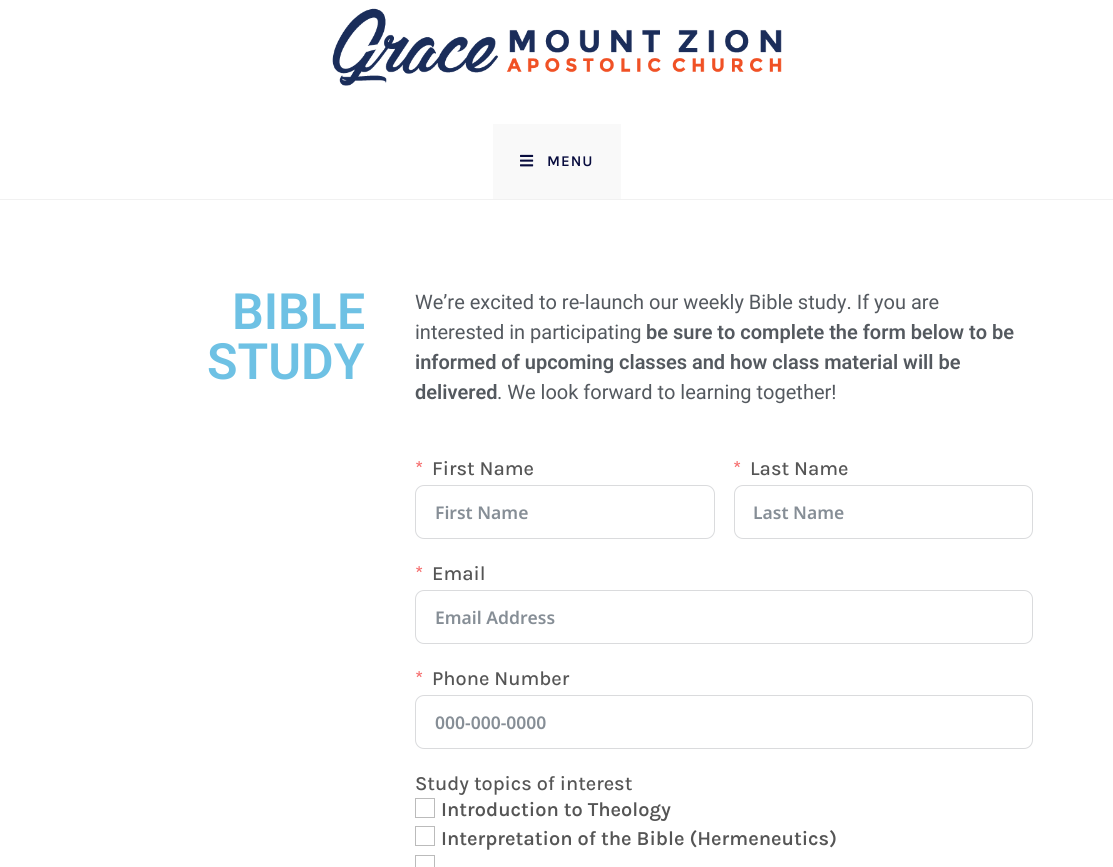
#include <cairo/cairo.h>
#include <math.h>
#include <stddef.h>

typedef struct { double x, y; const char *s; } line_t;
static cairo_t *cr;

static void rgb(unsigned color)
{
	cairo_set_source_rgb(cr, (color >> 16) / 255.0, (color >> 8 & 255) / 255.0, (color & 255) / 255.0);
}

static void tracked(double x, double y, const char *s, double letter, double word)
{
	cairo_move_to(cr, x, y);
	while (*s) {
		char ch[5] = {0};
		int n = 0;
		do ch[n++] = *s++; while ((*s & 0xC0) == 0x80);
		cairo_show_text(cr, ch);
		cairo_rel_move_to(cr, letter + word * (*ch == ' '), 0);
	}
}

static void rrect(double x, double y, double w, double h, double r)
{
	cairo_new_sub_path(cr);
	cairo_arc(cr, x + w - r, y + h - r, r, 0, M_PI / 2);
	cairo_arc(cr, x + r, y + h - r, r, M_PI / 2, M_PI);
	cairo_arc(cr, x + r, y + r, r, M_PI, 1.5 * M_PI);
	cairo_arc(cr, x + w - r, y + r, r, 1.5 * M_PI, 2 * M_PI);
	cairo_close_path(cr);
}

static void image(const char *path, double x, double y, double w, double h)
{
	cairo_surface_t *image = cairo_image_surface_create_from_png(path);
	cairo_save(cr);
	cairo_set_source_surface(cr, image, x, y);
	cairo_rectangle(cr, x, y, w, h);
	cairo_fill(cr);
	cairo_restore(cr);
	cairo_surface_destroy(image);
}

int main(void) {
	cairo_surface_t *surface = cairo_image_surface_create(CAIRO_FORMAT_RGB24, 1113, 867);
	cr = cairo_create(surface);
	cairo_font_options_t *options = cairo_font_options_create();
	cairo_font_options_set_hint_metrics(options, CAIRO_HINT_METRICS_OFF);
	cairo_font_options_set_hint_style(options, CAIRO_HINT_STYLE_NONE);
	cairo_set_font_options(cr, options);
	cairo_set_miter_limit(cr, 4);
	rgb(0xffffff);
	cairo_paint(cr);
	rgb(0xf1f1f1);
	cairo_rectangle(cr, 0, 199, 1113, 1);
	cairo_fill(cr);
	image("img/1.png", 332, 8, 450, 78);
	rgb(0xf9f9f9);
	cairo_rectangle(cr, 493, 124, 128, 75);
	cairo_fill(cr);
	image("img/2.png", 520, 154, 14, 13);
	rrect(415.5, 485.5, 299, 53, 8.5);
	rgb(0xdadbdd);
	cairo_set_line_width(cr, 1);
	cairo_stroke(cr);
	rrect(734.5, 485.5, 298, 53, 8.5);
	cairo_stroke(cr);
	rrect(415.5, 590.5, 617, 53, 8.5);
	cairo_stroke(cr);
	rrect(415.5, 695.5, 617, 53, 8.5);
	cairo_stroke(cr);
	cairo_rectangle(cr, 415.5, 798.5, 19, 19);
	rgb(0xbbbbbb);
	cairo_stroke(cr);
	cairo_rectangle(cr, 415.5, 826.5, 19, 19);
	cairo_stroke(cr);
	cairo_rectangle(cr, 415.5, 855.5, 19, 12);
	cairo_stroke(cr);
	cairo_select_font_face(cr, "Karla SemiBold", CAIRO_FONT_SLANT_NORMAL, CAIRO_FONT_WEIGHT_NORMAL);
	cairo_set_font_size(cr, 15);
	rgb(0x080c3e);
	tracked(547, 166, "MENU", 1, 0);
	cairo_select_font_face(cr, "Roboto SemiBold", CAIRO_FONT_SLANT_NORMAL, CAIRO_FONT_WEIGHT_NORMAL);
	cairo_set_font_size(cr, 50);
	rgb(0x6ec1e4);
	cairo_move_to(cr, 232, 329);
	cairo_show_text(cr, "BIBLE");
	cairo_move_to(cr, 207, 379);
	cairo_show_text(cr, "STUDY");
	cairo_select_font_face(cr, "Roboto", CAIRO_FONT_SLANT_NORMAL, CAIRO_FONT_WEIGHT_NORMAL);
	cairo_set_font_size(cr, 20);
	rgb(0x54595f);
	cairo_move_to(cr, 415, 309);
	cairo_show_text(cr, "We’re excited to re-launch our weekly Bible study. If you are");
	cairo_move_to(cr, 415, 339);
	cairo_show_text(cr, "interested in participating");
	cairo_select_font_face(cr, "Roboto SemiBold", CAIRO_FONT_SLANT_NORMAL, CAIRO_FONT_WEIGHT_NORMAL);
	{
		static const line_t items[] = {
			{646, 339, "be sure to complete the form below to be"},
			{415, 369, "informed of upcoming classes and how class material will be"},
			{415, 399, "delivered"},
		};
		for (size_t i = 0; i < sizeof items / sizeof *items; i++) {
			cairo_move_to(cr, items[i].x, items[i].y);
			cairo_show_text(cr, items[i].s);
		}
	}
	cairo_select_font_face(cr, "Roboto", CAIRO_FONT_SLANT_NORMAL, CAIRO_FONT_WEIGHT_NORMAL);
	cairo_move_to(cr, 497, 399);
	cairo_show_text(cr, ". We look forward to learning together!");
	cairo_select_font_face(cr, "Karla Medium", CAIRO_FONT_SLANT_NORMAL, CAIRO_FONT_WEIGHT_NORMAL);
	rgb(0xf56c6c);
	cairo_move_to(cr, 415, 475);
	cairo_show_text(cr, "*");
	rgb(0x555555);
	cairo_move_to(cr, 432, 475);
	cairo_show_text(cr, "First Name");
	cairo_select_font_face(cr, "Noto Sans SemiBold", CAIRO_FONT_SLANT_NORMAL, CAIRO_FONT_WEIGHT_NORMAL);
	cairo_set_font_size(cr, 17.5);
	rgb(0x868e96);
	cairo_move_to(cr, 435, 519);
	cairo_show_text(cr, "First Name");
	cairo_select_font_face(cr, "Karla Medium", CAIRO_FONT_SLANT_NORMAL, CAIRO_FONT_WEIGHT_NORMAL);
	cairo_set_font_size(cr, 20);
	rgb(0xf56c6c);
	cairo_move_to(cr, 733, 475);
	cairo_show_text(cr, "*");
	rgb(0x555555);
	cairo_move_to(cr, 750, 475);
	cairo_show_text(cr, "Last Name");
	cairo_select_font_face(cr, "Noto Sans SemiBold", CAIRO_FONT_SLANT_NORMAL, CAIRO_FONT_WEIGHT_NORMAL);
	cairo_set_font_size(cr, 17.5);
	rgb(0x868e96);
	cairo_move_to(cr, 753, 519);
	cairo_show_text(cr, "Last Name");
	cairo_select_font_face(cr, "Karla Medium", CAIRO_FONT_SLANT_NORMAL, CAIRO_FONT_WEIGHT_NORMAL);
	cairo_set_font_size(cr, 20);
	rgb(0xf56c6c);
	cairo_move_to(cr, 415, 580);
	cairo_show_text(cr, "*");
	rgb(0x555555);
	cairo_move_to(cr, 432, 580);
	cairo_show_text(cr, "Email");
	cairo_select_font_face(cr, "Noto Sans SemiBold", CAIRO_FONT_SLANT_NORMAL, CAIRO_FONT_WEIGHT_NORMAL);
	cairo_set_font_size(cr, 17.5);
	rgb(0x868e96);
	cairo_move_to(cr, 435, 624);
	cairo_show_text(cr, "Email Address");
	cairo_select_font_face(cr, "Karla Medium", CAIRO_FONT_SLANT_NORMAL, CAIRO_FONT_WEIGHT_NORMAL);
	cairo_set_font_size(cr, 20);
	rgb(0xf56c6c);
	cairo_move_to(cr, 415, 685);
	cairo_show_text(cr, "*");
	rgb(0x555555);
	cairo_move_to(cr, 432, 685);
	cairo_show_text(cr, "Phone Number");
	cairo_select_font_face(cr, "Noto Sans SemiBold", CAIRO_FONT_SLANT_NORMAL, CAIRO_FONT_WEIGHT_NORMAL);
	cairo_set_font_size(cr, 17.5);
	rgb(0x868e96);
	cairo_move_to(cr, 435, 729);
	cairo_show_text(cr, "000-000-0000");
	cairo_select_font_face(cr, "Karla Medium", CAIRO_FONT_SLANT_NORMAL, CAIRO_FONT_WEIGHT_NORMAL);
	cairo_set_font_size(cr, 20);
	rgb(0x555555);
	cairo_move_to(cr, 415, 790);
	cairo_show_text(cr, "Study topics of interest");
	cairo_select_font_face(cr, "Karla SemiBold", CAIRO_FONT_SLANT_NORMAL, CAIRO_FONT_WEIGHT_NORMAL);
	cairo_move_to(cr, 441, 816);
	cairo_show_text(cr, "Introduction to Theology");
	cairo_move_to(cr, 441, 845);
	cairo_show_text(cr, "Interpretation of the Bible (Hermeneutics)");
	cairo_surface_write_to_png(surface, "page.png");
	cairo_font_options_destroy(options);
	cairo_destroy(cr);
	cairo_surface_destroy(surface);
	return 0;
}
